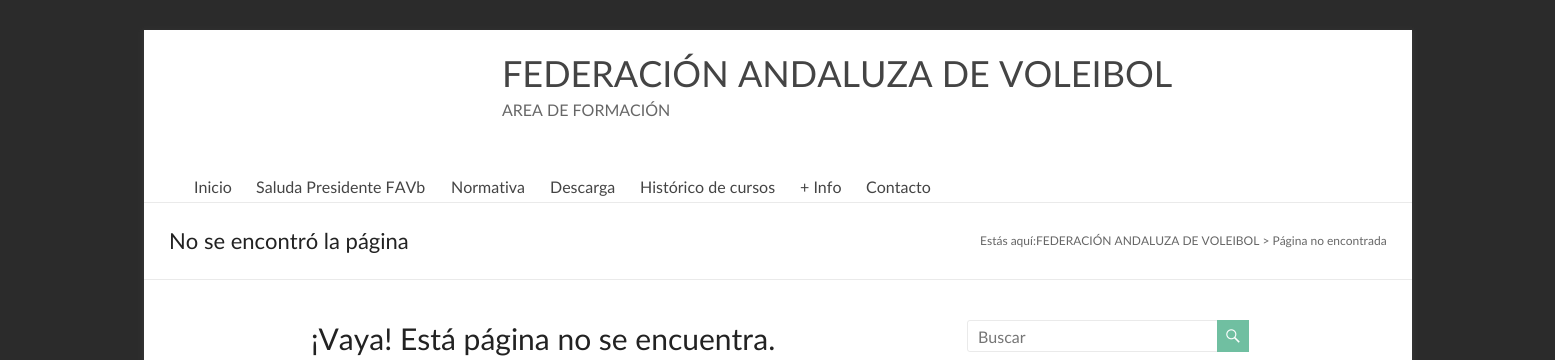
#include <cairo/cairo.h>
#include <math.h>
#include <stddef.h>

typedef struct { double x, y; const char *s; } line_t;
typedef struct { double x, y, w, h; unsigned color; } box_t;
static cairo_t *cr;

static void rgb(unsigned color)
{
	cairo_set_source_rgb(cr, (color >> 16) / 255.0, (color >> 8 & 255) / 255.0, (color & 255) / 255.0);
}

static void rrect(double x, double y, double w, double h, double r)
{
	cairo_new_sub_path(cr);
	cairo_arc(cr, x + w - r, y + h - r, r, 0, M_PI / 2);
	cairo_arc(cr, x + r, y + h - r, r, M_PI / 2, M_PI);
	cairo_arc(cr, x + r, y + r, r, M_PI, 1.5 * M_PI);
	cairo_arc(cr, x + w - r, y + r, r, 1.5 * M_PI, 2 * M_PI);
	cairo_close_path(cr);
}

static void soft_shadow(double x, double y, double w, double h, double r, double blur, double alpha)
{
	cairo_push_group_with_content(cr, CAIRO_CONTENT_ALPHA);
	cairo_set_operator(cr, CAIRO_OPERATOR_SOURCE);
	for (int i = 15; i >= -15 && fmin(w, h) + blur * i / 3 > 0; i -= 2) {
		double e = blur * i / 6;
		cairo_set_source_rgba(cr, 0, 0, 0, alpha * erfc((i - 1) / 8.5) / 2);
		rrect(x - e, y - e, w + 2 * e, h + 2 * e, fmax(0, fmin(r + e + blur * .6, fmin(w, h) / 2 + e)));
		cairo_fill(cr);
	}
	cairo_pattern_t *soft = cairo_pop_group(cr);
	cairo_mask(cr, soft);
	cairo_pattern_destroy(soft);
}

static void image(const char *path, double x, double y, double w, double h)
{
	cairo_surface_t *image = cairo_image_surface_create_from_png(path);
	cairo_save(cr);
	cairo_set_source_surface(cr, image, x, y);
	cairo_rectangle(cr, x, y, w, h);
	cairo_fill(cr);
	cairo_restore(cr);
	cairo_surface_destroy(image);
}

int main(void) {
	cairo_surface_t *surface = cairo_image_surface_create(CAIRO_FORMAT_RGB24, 1555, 360);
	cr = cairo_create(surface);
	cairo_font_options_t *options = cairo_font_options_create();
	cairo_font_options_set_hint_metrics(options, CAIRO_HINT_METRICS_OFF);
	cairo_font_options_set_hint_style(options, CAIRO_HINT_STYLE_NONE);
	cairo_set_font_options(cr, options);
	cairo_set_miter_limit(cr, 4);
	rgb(0x2b2b2b);
	cairo_paint(cr);
	rgb(0x646464);
	soft_shadow(144, 32, 1268, 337, 0, 3, 0.3);
	{
		static const box_t items[] = {
			{144, 30, 1268, 330, 0xffffff},
			{144, 202, 1268, 1, 0xeaeaea},
			{144, 279, 1268, 1, 0xeaeaea},
		};
		for (size_t i = 0; i < sizeof items / sizeof *items; i++) {
			rgb(items[i].color);
			cairo_rectangle(cr, items[i].x, items[i].y, items[i].w, items[i].h);
			cairo_fill(cr);
		}
	}
	rrect(967.5, 320.5, 251, 31, 2.5);
	cairo_set_line_width(cr, 1);
	cairo_stroke(cr);
	rgb(0x70bfa1);
	cairo_rectangle(cr, 1217, 320, 32, 32);
	cairo_fill(cr);
	image("img/1.png", 1226, 329, 14, 14);
	cairo_select_font_face(cr, "Lato", CAIRO_FONT_SLANT_NORMAL, CAIRO_FONT_WEIGHT_NORMAL);
	cairo_set_font_size(cr, 36);
	rgb(0x444444);
	cairo_move_to(cr, 502, 87);
	cairo_show_text(cr, "FEDERACIÓN ANDALUZA DE VOLEIBOL");
	cairo_set_font_size(cr, 16);
	rgb(0x666666);
	cairo_move_to(cr, 502, 116);
	cairo_show_text(cr, "AREA DE FORMACIÓN");
	rgb(0x444444);
	{
		static const line_t items[] = {
			{194, 193, "Inicio"},
			{256, 193, "Saluda Presidente FAVb"},
			{451, 193, "Normativa"},
			{550, 193, "Descarga"},
			{640, 193, "Histórico de cursos"},
			{800, 193, "+ Info"},
			{866, 193, "Contacto"},
		};
		for (size_t i = 0; i < sizeof items / sizeof *items; i++) {
			cairo_move_to(cr, items[i].x, items[i].y);
			cairo_show_text(cr, items[i].s);
		}
	}
	cairo_set_font_size(cr, 22);
	rgb(0x222222);
	cairo_move_to(cr, 169, 249);
	cairo_show_text(cr, "No se encontró la página");
	cairo_set_font_size(cr, 12);
	rgb(0x666666);
	cairo_move_to(cr, 980, 245);
	cairo_show_text(cr, "Estás aquí:FEDERACIÓN ANDALUZA DE VOLEIBOL > Página no encontrada");
	cairo_set_font_size(cr, 30);
	rgb(0x222222);
	cairo_move_to(cr, 311, 350);
	cairo_show_text(cr, "¡Vaya! Está página no se encuentra.");
	cairo_set_font_size(cr, 16);
	rgb(0x757575);
	cairo_move_to(cr, 978, 343);
	cairo_show_text(cr, "Buscar");
	cairo_surface_write_to_png(surface, "page.png");
	cairo_font_options_destroy(options);
	cairo_destroy(cr);
	cairo_surface_destroy(surface);
	return 0;
}
